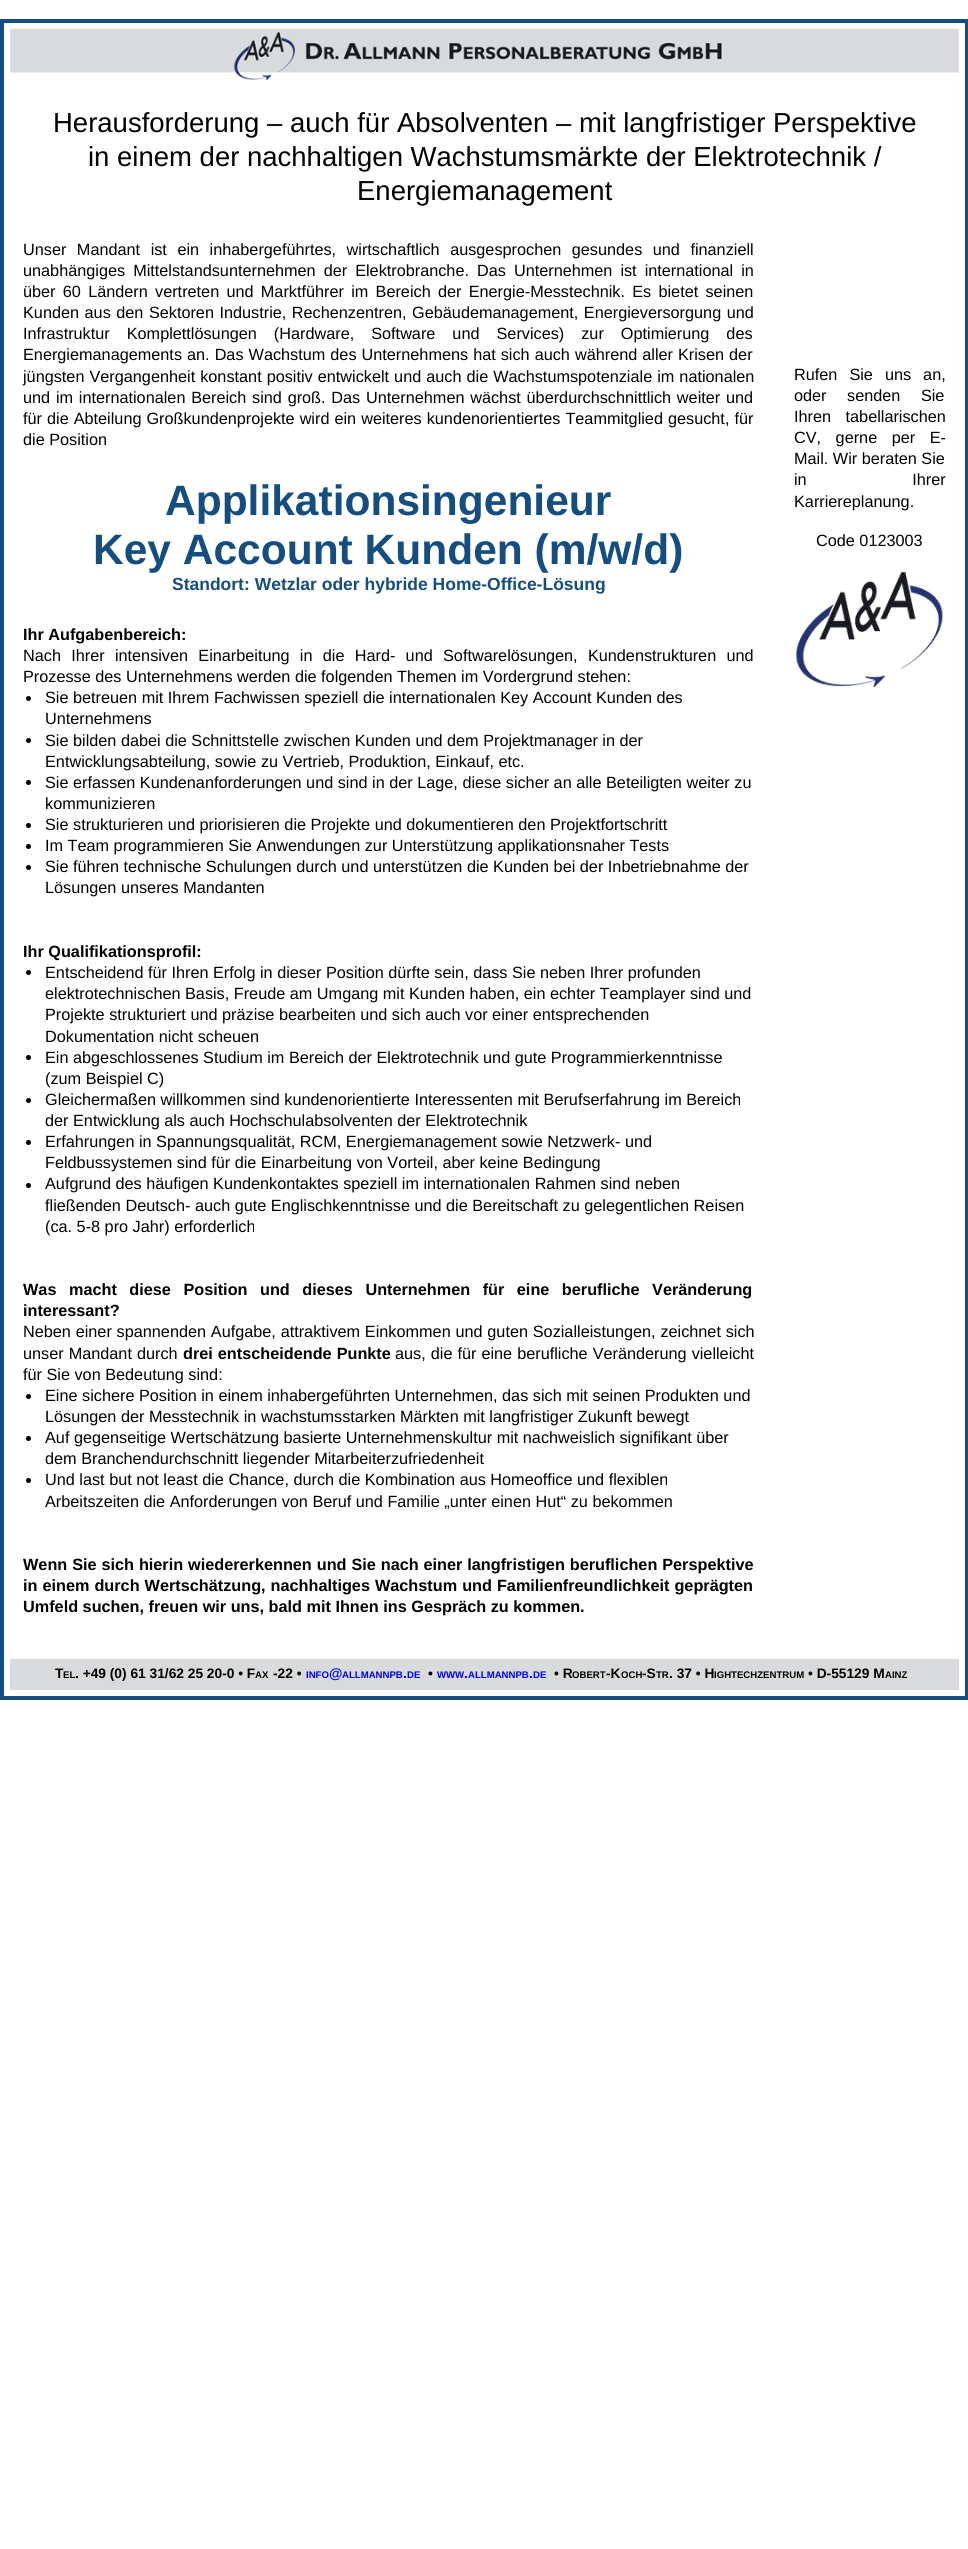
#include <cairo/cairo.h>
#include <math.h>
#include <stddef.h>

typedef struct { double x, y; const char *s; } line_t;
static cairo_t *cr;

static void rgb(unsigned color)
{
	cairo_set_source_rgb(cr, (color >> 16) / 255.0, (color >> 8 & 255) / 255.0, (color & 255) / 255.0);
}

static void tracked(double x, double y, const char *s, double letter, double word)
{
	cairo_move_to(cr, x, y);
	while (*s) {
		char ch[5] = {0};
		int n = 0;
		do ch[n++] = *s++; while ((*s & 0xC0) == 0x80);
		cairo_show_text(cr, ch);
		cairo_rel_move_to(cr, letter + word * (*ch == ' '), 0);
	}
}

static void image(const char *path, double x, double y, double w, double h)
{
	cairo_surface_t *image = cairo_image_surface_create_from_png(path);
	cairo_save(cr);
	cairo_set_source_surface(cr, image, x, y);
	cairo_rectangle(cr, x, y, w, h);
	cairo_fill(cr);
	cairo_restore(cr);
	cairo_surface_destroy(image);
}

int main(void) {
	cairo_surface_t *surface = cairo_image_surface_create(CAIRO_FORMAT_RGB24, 968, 2549);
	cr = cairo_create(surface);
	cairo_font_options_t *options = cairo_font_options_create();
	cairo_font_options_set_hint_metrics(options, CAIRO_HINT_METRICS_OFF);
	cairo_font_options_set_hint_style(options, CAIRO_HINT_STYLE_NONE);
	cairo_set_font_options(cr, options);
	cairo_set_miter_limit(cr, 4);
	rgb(0xffffff);
	cairo_paint(cr);
	cairo_rectangle(cr, 2, 21, 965, 1677);
	rgb(0x144d7f);
	cairo_set_line_width(cr, 4);
	cairo_stroke(cr);
	image("img/1.png", 10, 28, 949, 52);
	rgb(0x000000);
	cairo_arc(cr, 28.5, 698.5, 2.5, 0, 2 * M_PI);
	cairo_fill(cr);
	cairo_arc(cr, 28.5, 740.5, 2.5, 0, 2 * M_PI);
	cairo_fill(cr);
	cairo_arc(cr, 28.5, 782.5, 2.5, 0, 2 * M_PI);
	cairo_fill(cr);
	cairo_arc(cr, 28.5, 825.5, 2.5, 0, 2 * M_PI);
	cairo_fill(cr);
	cairo_arc(cr, 28.5, 846.5, 2.5, 0, 2 * M_PI);
	cairo_fill(cr);
	cairo_arc(cr, 28.5, 867.5, 2.5, 0, 2 * M_PI);
	cairo_fill(cr);
	cairo_arc(cr, 28.5, 972.5, 2.5, 0, 2 * M_PI);
	cairo_fill(cr);
	cairo_arc(cr, 28.5, 1057.5, 2.5, 0, 2 * M_PI);
	cairo_fill(cr);
	cairo_arc(cr, 28.5, 1100.5, 2.5, 0, 2 * M_PI);
	cairo_fill(cr);
	cairo_arc(cr, 28.5, 1142.5, 2.5, 0, 2 * M_PI);
	cairo_fill(cr);
	cairo_arc(cr, 28.5, 1185.5, 2.5, 0, 2 * M_PI);
	cairo_fill(cr);
	cairo_arc(cr, 28.5, 1396.5, 2.5, 0, 2 * M_PI);
	cairo_fill(cr);
	cairo_arc(cr, 28.5, 1438.5, 2.5, 0, 2 * M_PI);
	cairo_fill(cr);
	cairo_arc(cr, 28.5, 1480.5, 2.5, 0, 2 * M_PI);
	cairo_fill(cr);
	image("img/2.png", 796, 572, 147, 115);
	rgb(0xd9dadc);
	cairo_rectangle(cr, 10, 1659, 949, 31);
	cairo_fill(cr);
	cairo_select_font_face(cr, "Liberation Sans", CAIRO_FONT_SLANT_NORMAL, CAIRO_FONT_WEIGHT_NORMAL);
	cairo_set_font_size(cr, 27.5);
	rgb(0x000000);
	{
		static const line_t items[] = {
			{53, 132, "Herausforderung – auch für Absolventen – mit langfristiger Perspektive"},
			{88, 166, "in einem der nachhaltigen Wachstumsmärkte der Elektrotechnik /"},
			{357, 200, "Energiemanagement"},
		};
		for (size_t i = 0; i < sizeof items / sizeof *items; i++) {
			cairo_move_to(cr, items[i].x, items[i].y);
			cairo_show_text(cr, items[i].s);
		}
	}
	cairo_set_font_size(cr, 16.25);
	tracked(23, 255, "Unser Mandant ist ein inhabergeführtes, wirtschaftlich ausgesprochen gesundes und finanziell", 0, 6);
	tracked(23, 276, "unabhängiges Mittelstandsunternehmen der Elektrobranche. Das Unternehmen ist international in", 0, 3.5);
	tracked(23, 297, "über 60 Ländern vertreten und Marktführer im Bereich der Energie-Messtechnik. Es bietet seinen", 0, 2.75);
	tracked(23, 318, "Kunden aus den Sektoren Industrie, Rechenzentren, Gebäudemanagement, Energieversorgung und", 0, 1);
	tracked(23, 339, "Infrastruktur Komplettlösungen (Hardware, Software und Services) zur Optimierung des", 0, 12.5);
	tracked(23, 360, "Energiemanagements an. Das Wachstum des Unternehmens hat sich auch während aller Krisen der", 0, 0.5);
	tracked(23, 382, "jüngsten Vergangenheit konstant positiv entwickelt und auch die Wachstumspotenziale im nationalen", 0, 0.5);
	tracked(23, 403, "und im internationalen Bereich sind groß. Das Unternehmen wächst überdurchschnittlich weiter und", 0, 1.25);
	tracked(23, 424, "für die Abteilung Großkundenprojekte wird ein weiteres kundenorientiertes Teammitglied gesucht, für", 0, 0.5);
	cairo_move_to(cr, 23, 445);
	cairo_show_text(cr, "die Position");
	cairo_select_font_face(cr, "Liberation Sans", CAIRO_FONT_SLANT_NORMAL, CAIRO_FONT_WEIGHT_BOLD);
	cairo_set_font_size(cr, 42.5);
	rgb(0x144d7f);
	cairo_move_to(cr, 165, 515);
	cairo_show_text(cr, "Applikationsingenieur");
	cairo_move_to(cr, 93, 564);
	cairo_show_text(cr, "Key Account Kunden (m/w/d)");
	cairo_set_font_size(cr, 17.5);
	cairo_move_to(cr, 172, 590);
	cairo_show_text(cr, "Standort: Wetzlar oder hybride Home-Office-Lösung");
	cairo_set_font_size(cr, 16.25);
	rgb(0x000000);
	cairo_move_to(cr, 23, 640);
	cairo_show_text(cr, "Ihr Aufgabenbereich:");
	cairo_select_font_face(cr, "Liberation Sans", CAIRO_FONT_SLANT_NORMAL, CAIRO_FONT_WEIGHT_NORMAL);
	tracked(23, 661, "Nach Ihrer intensiven Einarbeitung in die Hard- und Softwarelösungen, Kundenstrukturen und", 0, 5.75);
	{
		static const line_t items[] = {
			{23, 682, "Prozesse des Unternehmens werden die folgenden Themen im Vordergrund stehen:"},
			{45, 703, "Sie betreuen mit Ihrem Fachwissen speziell die internationalen Key Account Kunden des"},
			{45, 724, "Unternehmens"},
			{45, 746, "Sie bilden dabei die Schnittstelle zwischen Kunden und dem Projektmanager in der"},
			{45, 767, "Entwicklungsabteilung, sowie zu Vertrieb, Produktion, Einkauf, etc."},
			{45, 788, "Sie erfassen Kundenanforderungen und sind in der Lage, diese sicher an alle Beteiligten weiter zu"},
			{45, 809, "kommunizieren"},
			{45, 830, "Sie strukturieren und priorisieren die Projekte und dokumentieren den Projektfortschritt"},
			{45, 851, "Im Team programmieren Sie Anwendungen zur Unterstützung applikationsnaher Tests"},
			{45, 872, "Sie führen technische Schulungen durch und unterstützen die Kunden bei der Inbetriebnahme der"},
			{45, 893, "Lösungen unseres Mandanten"},
		};
		for (size_t i = 0; i < sizeof items / sizeof *items; i++) {
			cairo_move_to(cr, items[i].x, items[i].y);
			cairo_show_text(cr, items[i].s);
		}
	}
	cairo_select_font_face(cr, "Liberation Sans", CAIRO_FONT_SLANT_NORMAL, CAIRO_FONT_WEIGHT_BOLD);
	cairo_move_to(cr, 23, 957);
	cairo_show_text(cr, "Ihr Qualifikationsprofil:");
	cairo_select_font_face(cr, "Liberation Sans", CAIRO_FONT_SLANT_NORMAL, CAIRO_FONT_WEIGHT_NORMAL);
	{
		static const line_t items[] = {
			{45, 978, "Entscheidend für Ihren Erfolg in dieser Position dürfte sein, dass Sie neben Ihrer profunden"},
			{45, 999, "elektrotechnischen Basis, Freude am Umgang mit Kunden haben, ein echter Teamplayer sind und"},
			{45, 1020, "Projekte strukturiert und präzise bearbeiten und sich auch vor einer entsprechenden"},
			{45, 1042, "Dokumentation nicht scheuen"},
			{45, 1063, "Ein abgeschlossenes Studium im Bereich der Elektrotechnik und gute Programmierkenntnisse"},
			{45, 1084, "(zum Beispiel C)"},
			{45, 1105, "Gleichermaßen willkommen sind kundenorientierte Interessenten mit Berufserfahrung im Bereich"},
			{45, 1126, "der Entwicklung als auch Hochschulabsolventen der Elektrotechnik"},
			{45, 1147, "Erfahrungen in Spannungsqualität, RCM, Energiemanagement sowie Netzwerk- und"},
			{45, 1168, "Feldbussystemen sind für die Einarbeitung von Vorteil, aber keine Bedingung"},
			{45, 1189, "Aufgrund des häufigen Kundenkontaktes speziell im internationalen Rahmen sind neben"},
			{45, 1211, "fließenden Deutsch- auch gute Englischkenntnisse und die Bereitschaft zu gelegentlichen Reisen"},
			{45, 1232, "(ca. 5-8 pro Jahr) erforderlich"},
		};
		for (size_t i = 0; i < sizeof items / sizeof *items; i++) {
			cairo_move_to(cr, items[i].x, items[i].y);
			cairo_show_text(cr, items[i].s);
		}
	}
	cairo_select_font_face(cr, "Liberation Sans", CAIRO_FONT_SLANT_NORMAL, CAIRO_FONT_WEIGHT_BOLD);
	tracked(23, 1295, "Was macht diese Position und dieses Unternehmen für eine berufliche Veränderung", 0, 8);
	cairo_move_to(cr, 23, 1316);
	cairo_show_text(cr, "interessant?");
	cairo_select_font_face(cr, "Liberation Sans", CAIRO_FONT_SLANT_NORMAL, CAIRO_FONT_WEIGHT_NORMAL);
	tracked(23, 1337, "Neben einer spannenden Aufgabe, attraktivem Einkommen und guten Sozialleistungen, zeichnet sich", 0, 0.25);
	tracked(23, 1359, "unser Mandant durch", 0, 0.5);
	cairo_select_font_face(cr, "Liberation Sans", CAIRO_FONT_SLANT_NORMAL, CAIRO_FONT_WEIGHT_BOLD);
	tracked(183, 1359, "drei entscheidende Punkte", 0, 0.5);
	cairo_select_font_face(cr, "Liberation Sans", CAIRO_FONT_SLANT_NORMAL, CAIRO_FONT_WEIGHT_NORMAL);
	tracked(395, 1359, "aus, die für eine berufliche Veränderung vielleicht", 0, 0.5);
	{
		static const line_t items[] = {
			{23, 1380, "für Sie von Bedeutung sind:"},
			{45, 1401, "Eine sichere Position in einem inhabergeführten Unternehmen, das sich mit seinen Produkten und"},
			{45, 1422, "Lösungen der Messtechnik in wachstumsstarken Märkten mit langfristiger Zukunft bewegt"},
			{45, 1443, "Auf gegenseitige Wertschätzung basierte Unternehmenskultur mit nachweislich signifikant über"},
			{45, 1464, "dem Branchendurchschnitt liegender Mitarbeiterzufriedenheit"},
			{45, 1485, "Und last but not least die Chance, durch die Kombination aus Homeoffice und flexiblen"},
			{45, 1507, "Arbeitszeiten die Anforderungen von Beruf und Familie „unter einen Hut“ zu bekommen"},
		};
		for (size_t i = 0; i < sizeof items / sizeof *items; i++) {
			cairo_move_to(cr, items[i].x, items[i].y);
			cairo_show_text(cr, items[i].s);
		}
	}
	cairo_select_font_face(cr, "Liberation Sans", CAIRO_FONT_SLANT_NORMAL, CAIRO_FONT_WEIGHT_BOLD);
	tracked(23, 1570, "Wenn Sie sich hierin wiedererkennen und Sie nach einer langfristigen beruflichen Perspektive", 0, 0.4);
	tracked(23, 1591, "in einem durch Wertschätzung, nachhaltiges Wachstum und Familienfreundlichkeit geprägten", 0, 0.5);
	cairo_move_to(cr, 23, 1612);
	cairo_show_text(cr, "Umfeld suchen, freuen wir uns, bald mit Ihnen ins Gespräch zu kommen.");
	cairo_select_font_face(cr, "Liberation Sans", CAIRO_FONT_SLANT_NORMAL, CAIRO_FONT_WEIGHT_NORMAL);
	tracked(794, 380, "Rufen Sie uns an,", 0, 7.5);
	tracked(794, 401, "oder senden Sie", 0, 16);
	tracked(794, 422, "Ihren tabellarischen", 0, 10);
	tracked(794, 443, "CV, gerne per E-", 0, 10);
	cairo_move_to(cr, 794, 464);
	cairo_show_text(cr, "Mail. Wir beraten Sie");
	tracked(794, 485, "in Ihrer", 0, 101);
	cairo_move_to(cr, 794, 507);
	cairo_show_text(cr, "Karriereplanung.");
	cairo_move_to(cr, 816, 546);
	cairo_show_text(cr, "Code 0123003");
	cairo_select_font_face(cr, "Liberation Sans", CAIRO_FONT_SLANT_NORMAL, CAIRO_FONT_WEIGHT_BOLD);
	cairo_set_font_size(cr, 13.75);
	cairo_move_to(cr, 55, 1678);
	cairo_show_text(cr, "T");
	cairo_set_font_size(cr, 9.6);
	cairo_move_to(cr, 63, 1678);
	cairo_show_text(cr, "EL");
	cairo_set_font_size(cr, 13.75);
	cairo_move_to(cr, 75, 1678);
	cairo_show_text(cr, ". +49 (0) 61 31/62 25 20-0 • F");
	cairo_set_font_size(cr, 9.6);
	cairo_move_to(cr, 255, 1678);
	cairo_show_text(cr, "AX");
	cairo_set_font_size(cr, 13.75);
	cairo_move_to(cr, 273, 1678);
	cairo_show_text(cr, "-22 •");
	cairo_set_font_size(cr, 9.6);
	rgb(0x0000ff);
	cairo_move_to(cr, 306, 1678);
	cairo_show_text(cr, "INFO");
	cairo_set_font_size(cr, 13.75);
	cairo_move_to(cr, 329, 1678);
	cairo_show_text(cr, "@");
	cairo_set_font_size(cr, 9.6);
	cairo_move_to(cr, 342, 1678);
	cairo_show_text(cr, "ALLMANNPB");
	cairo_set_font_size(cr, 13.75);
	cairo_move_to(cr, 403, 1678);
	cairo_show_text(cr, ".");
	cairo_set_font_size(cr, 9.6);
	cairo_move_to(cr, 407, 1678);
	cairo_show_text(cr, "DE");
	cairo_set_font_size(cr, 13.75);
	rgb(0x000000);
	cairo_move_to(cr, 428, 1678);
	cairo_show_text(cr, "•");
	cairo_set_font_size(cr, 9.6);
	rgb(0x0000ff);
	cairo_move_to(cr, 437, 1678);
	cairo_show_text(cr, "WWW");
	cairo_set_font_size(cr, 13.75);
	cairo_move_to(cr, 464, 1678);
	cairo_show_text(cr, ".");
	cairo_set_font_size(cr, 9.6);
	cairo_move_to(cr, 468, 1678);
	cairo_show_text(cr, "ALLMANNPB");
	cairo_set_font_size(cr, 13.75);
	cairo_move_to(cr, 529, 1678);
	cairo_show_text(cr, ".");
	cairo_set_font_size(cr, 9.6);
	cairo_move_to(cr, 533, 1678);
	cairo_show_text(cr, "DE");
	cairo_set_font_size(cr, 13.75);
	rgb(0x000000);
	cairo_move_to(cr, 554, 1678);
	cairo_show_text(cr, "• R");
	cairo_set_font_size(cr, 9.6);
	cairo_move_to(cr, 572, 1678);
	cairo_show_text(cr, "OBERT");
	cairo_set_font_size(cr, 13.75);
	cairo_move_to(cr, 606, 1678);
	cairo_show_text(cr, "-K");
	cairo_set_font_size(cr, 9.6);
	cairo_move_to(cr, 621, 1678);
	cairo_show_text(cr, "OCH");
	cairo_set_font_size(cr, 13.75);
	cairo_move_to(cr, 642, 1678);
	cairo_show_text(cr, "-S");
	cairo_set_font_size(cr, 9.6);
	cairo_move_to(cr, 656, 1678);
	cairo_show_text(cr, "TR");
	cairo_set_font_size(cr, 13.75);
	cairo_move_to(cr, 669, 1678);
	cairo_show_text(cr, ". 37 • H");
	cairo_set_font_size(cr, 9.6);
	cairo_move_to(cr, 714, 1678);
	cairo_show_text(cr, "IGHTECHZENTRUM");
	cairo_set_font_size(cr, 13.75);
	cairo_move_to(cr, 808, 1678);
	cairo_show_text(cr, "• D-55129 M");
	cairo_set_font_size(cr, 9.6);
	cairo_move_to(cr, 885, 1678);
	cairo_show_text(cr, "AINZ");
	cairo_surface_write_to_png(surface, "page.png");
	cairo_font_options_destroy(options);
	cairo_destroy(cr);
	cairo_surface_destroy(surface);
	return 0;
}
